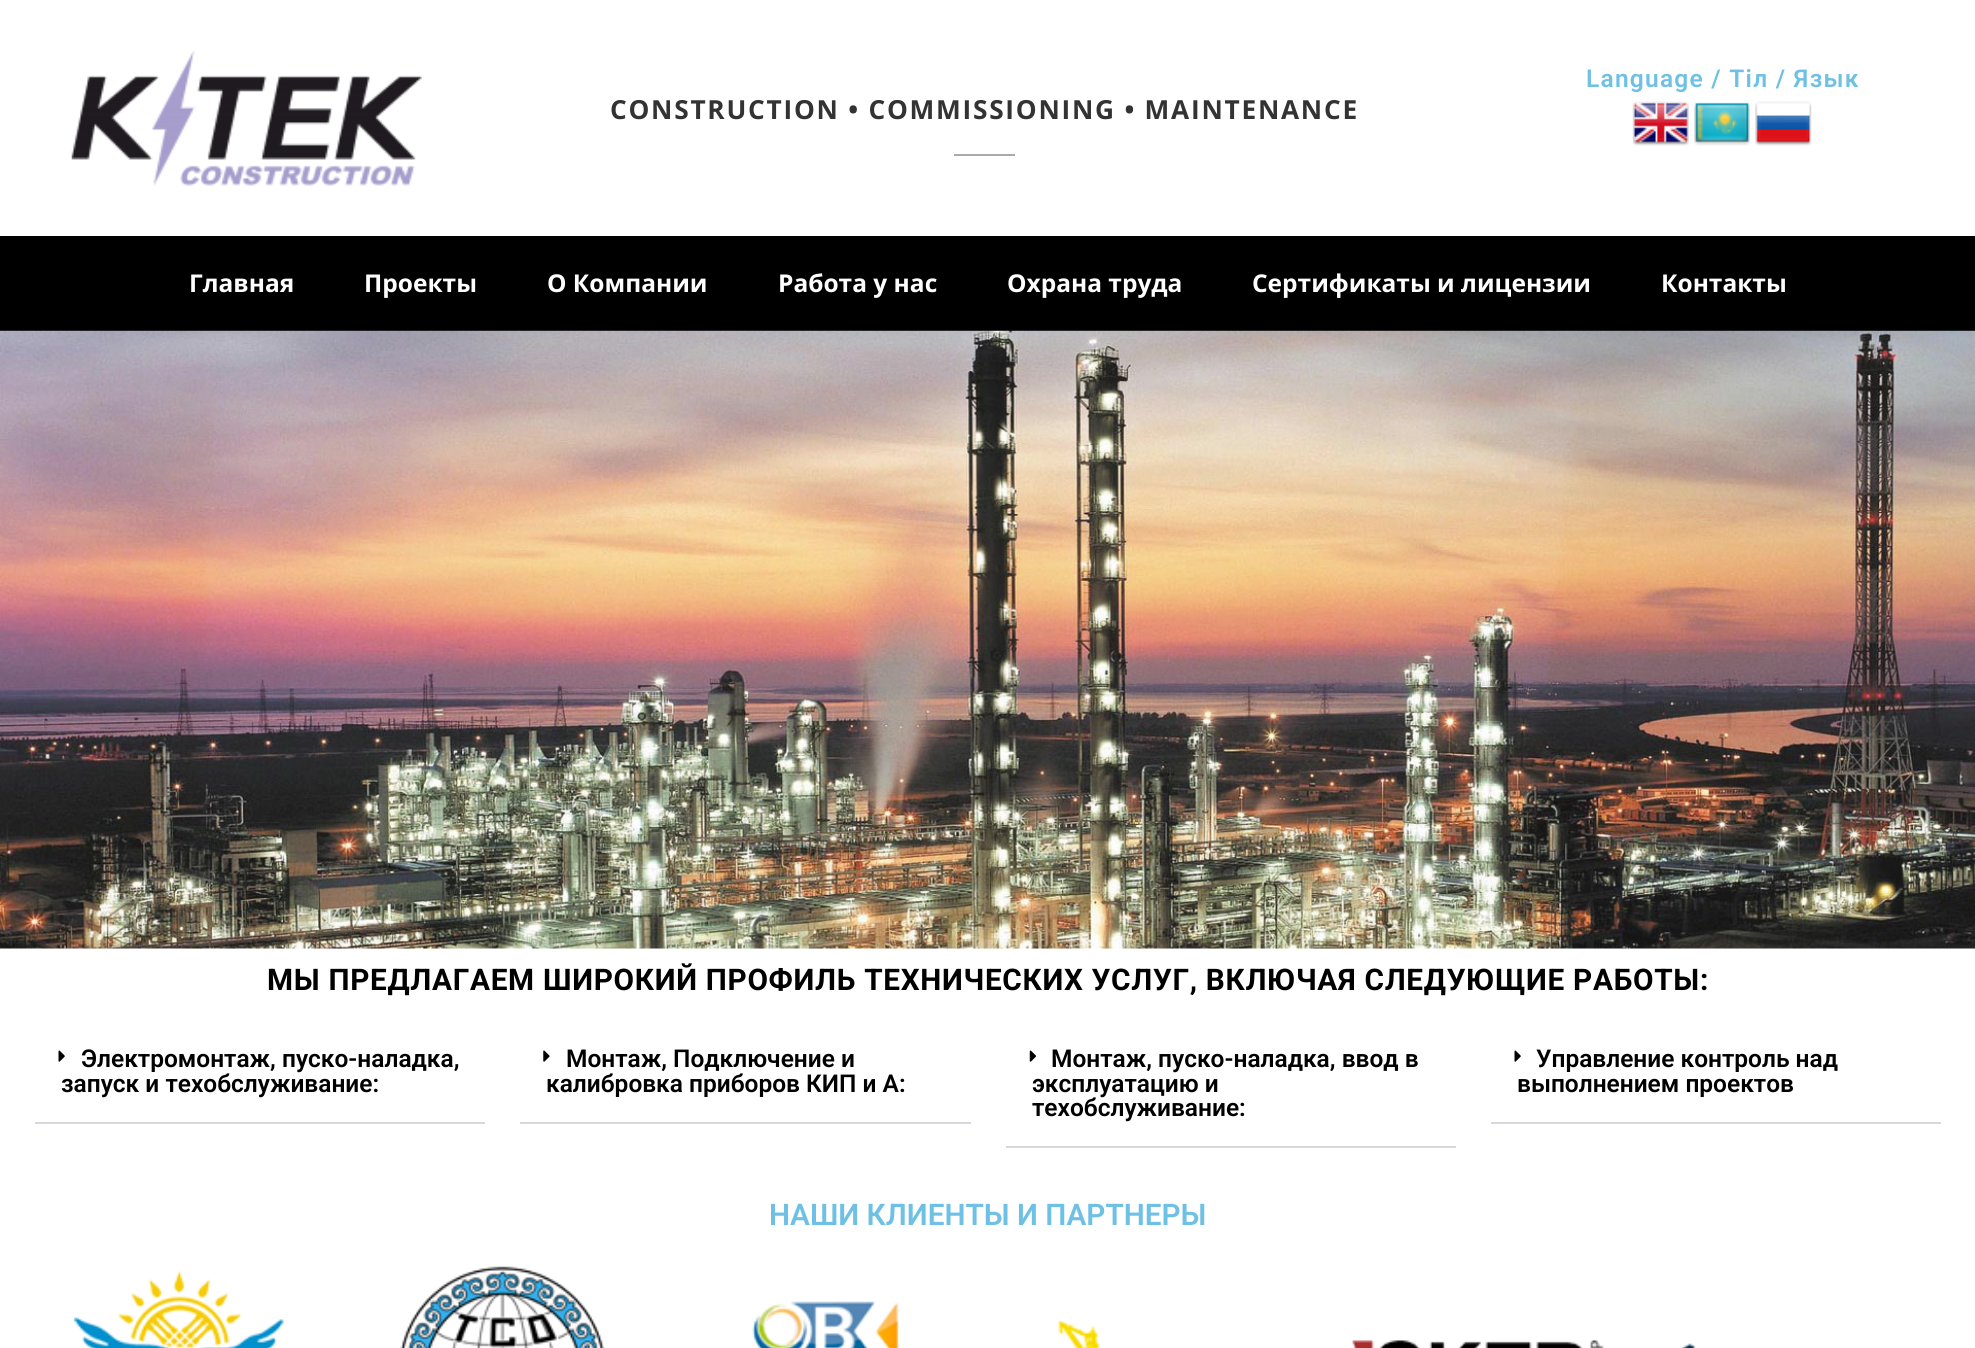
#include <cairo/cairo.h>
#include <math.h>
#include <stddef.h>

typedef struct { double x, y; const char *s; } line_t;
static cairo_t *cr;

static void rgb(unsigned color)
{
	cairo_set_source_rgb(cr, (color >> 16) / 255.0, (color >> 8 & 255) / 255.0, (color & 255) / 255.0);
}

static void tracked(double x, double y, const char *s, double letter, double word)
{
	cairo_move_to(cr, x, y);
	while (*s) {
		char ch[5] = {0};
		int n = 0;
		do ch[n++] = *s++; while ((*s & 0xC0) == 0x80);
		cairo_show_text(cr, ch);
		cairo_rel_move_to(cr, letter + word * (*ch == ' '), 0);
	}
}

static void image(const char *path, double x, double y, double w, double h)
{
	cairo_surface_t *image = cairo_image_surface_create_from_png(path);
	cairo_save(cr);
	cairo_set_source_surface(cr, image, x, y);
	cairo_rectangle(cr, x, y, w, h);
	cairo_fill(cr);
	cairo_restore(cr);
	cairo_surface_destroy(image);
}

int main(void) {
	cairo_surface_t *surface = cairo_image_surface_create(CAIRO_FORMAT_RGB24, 1975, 1348);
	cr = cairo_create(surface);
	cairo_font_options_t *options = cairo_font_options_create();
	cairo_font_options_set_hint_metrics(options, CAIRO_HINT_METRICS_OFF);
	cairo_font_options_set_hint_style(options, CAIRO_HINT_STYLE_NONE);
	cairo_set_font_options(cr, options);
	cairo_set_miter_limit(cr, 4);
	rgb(0xffffff);
	cairo_paint(cr);
	image("img/1.png", 71, 51, 351, 135);
	image("img/2.png", 1632, 101, 57, 45);
	image("img/3.png", 1694, 102, 56, 44);
	image("img/4.png", 1755, 101, 57, 45);
	rgb(0xaaaaaa);
	cairo_rectangle(cr, 954, 154, 61, 2);
	cairo_fill(cr);
	rgb(0x000000);
	cairo_rectangle(cr, 0, 236, 1975, 95);
	cairo_fill(cr);
	image("img/5.png", 0, 330, 1975, 619);
	rgb(0xd5d8dc);
	cairo_rectangle(cr, 35, 1122, 450, 2);
	cairo_fill(cr);
	image("img/6.png", 58, 1050, 7, 12);
	cairo_rectangle(cr, 520, 1122, 451, 2);
	cairo_fill(cr);
	image("img/7.png", 543, 1050, 7, 12);
	cairo_rectangle(cr, 1006, 1146, 450, 2);
	cairo_fill(cr);
	image("img/8.png", 1029, 1050, 8, 12);
	cairo_rectangle(cr, 1491, 1122, 450, 2);
	cairo_fill(cr);
	image("img/6.png", 1514, 1050, 7, 12);
	image("img/9.png", 74, 1269, 210, 79);
	image("img/10.png", 400, 1266, 205, 82);
	image("img/11.png", 752, 1301, 147, 47);
	image("img/12.png", 1058, 1320, 42, 28);
	image("img/13.png", 1352, 1340, 252, 8);
	image("img/14.png", 1680, 1343, 16, 5);
	cairo_select_font_face(cr, "Roboto SemiBold", CAIRO_FONT_SLANT_NORMAL, CAIRO_FONT_WEIGHT_NORMAL);
	cairo_set_font_size(cr, 24.5);
	rgb(0x6ec1e4);
	tracked(1586, 87, "Language / Тіл / Язык", 1.25, 0);
	cairo_select_font_face(cr, "Open Sans", CAIRO_FONT_SLANT_NORMAL, CAIRO_FONT_WEIGHT_BOLD);
	cairo_set_font_size(cr, 26.25);
	rgb(0x333333);
	tracked(610, 119, "CONSTRUCTION • COMMISSIONING • MAINTENANCE", 1.75, 0);
	cairo_set_font_size(cr, 24.5);
	rgb(0xffffff);
	{
		static const line_t items[] = {
			{189, 292, "Главная"},
			{364, 292, "Проекты"},
			{547, 292, "О Компании"},
			{778, 292, "Работа у нас"},
			{1007, 292, "Охрана труда"},
			{1252, 292, "Сертификаты и лицензии"},
			{1661, 292, "Контакты"},
		};
		for (size_t i = 0; i < sizeof items / sizeof *items; i++) {
			cairo_move_to(cr, items[i].x, items[i].y);
			cairo_show_text(cr, items[i].s);
		}
	}
	cairo_select_font_face(cr, "Roboto", CAIRO_FONT_SLANT_NORMAL, CAIRO_FONT_WEIGHT_BOLD);
	cairo_set_font_size(cr, 29.75);
	rgb(0x000000);
	tracked(267, 990, "МЫ ПРЕДЛАГАЕМ ШИРОКИЙ ПРОФИЛЬ ТЕХНИЧЕСКИХ УСЛУГ, ВКЛЮЧАЯ СЛЕДУЮЩИЕ РАБОТЫ:", 0.7, 0);
	cairo_select_font_face(cr, "Roboto SemiBold", CAIRO_FONT_SLANT_NORMAL, CAIRO_FONT_WEIGHT_NORMAL);
	cairo_set_font_size(cr, 24.5);
	{
		static const line_t items[] = {
			{81, 1067, "Электромонтаж, пуско-наладка,"},
			{61, 1092, "запуск и техобслуживание:"},
			{566, 1067, "Монтаж, Подключение и"},
			{546, 1092, "калибровка приборов КИП и А:"},
			{1051, 1067, "Монтаж, пуско-наладка, ввод в"},
			{1032, 1092, "эксплуатацию и"},
			{1032, 1116, "техобслуживание:"},
			{1536, 1067, "Управление контроль над"},
			{1517, 1092, "выполнением проектов"},
		};
		for (size_t i = 0; i < sizeof items / sizeof *items; i++) {
			cairo_move_to(cr, items[i].x, items[i].y);
			cairo_show_text(cr, items[i].s);
		}
	}
	cairo_set_font_size(cr, 29.75);
	rgb(0x6ec1e4);
	cairo_move_to(cr, 769, 1225);
	cairo_show_text(cr, "НАШИ КЛИЕНТЫ И ПАРТНЕРЫ");
	cairo_surface_write_to_png(surface, "page.png");
	cairo_font_options_destroy(options);
	cairo_destroy(cr);
	cairo_surface_destroy(surface);
	return 0;
}
